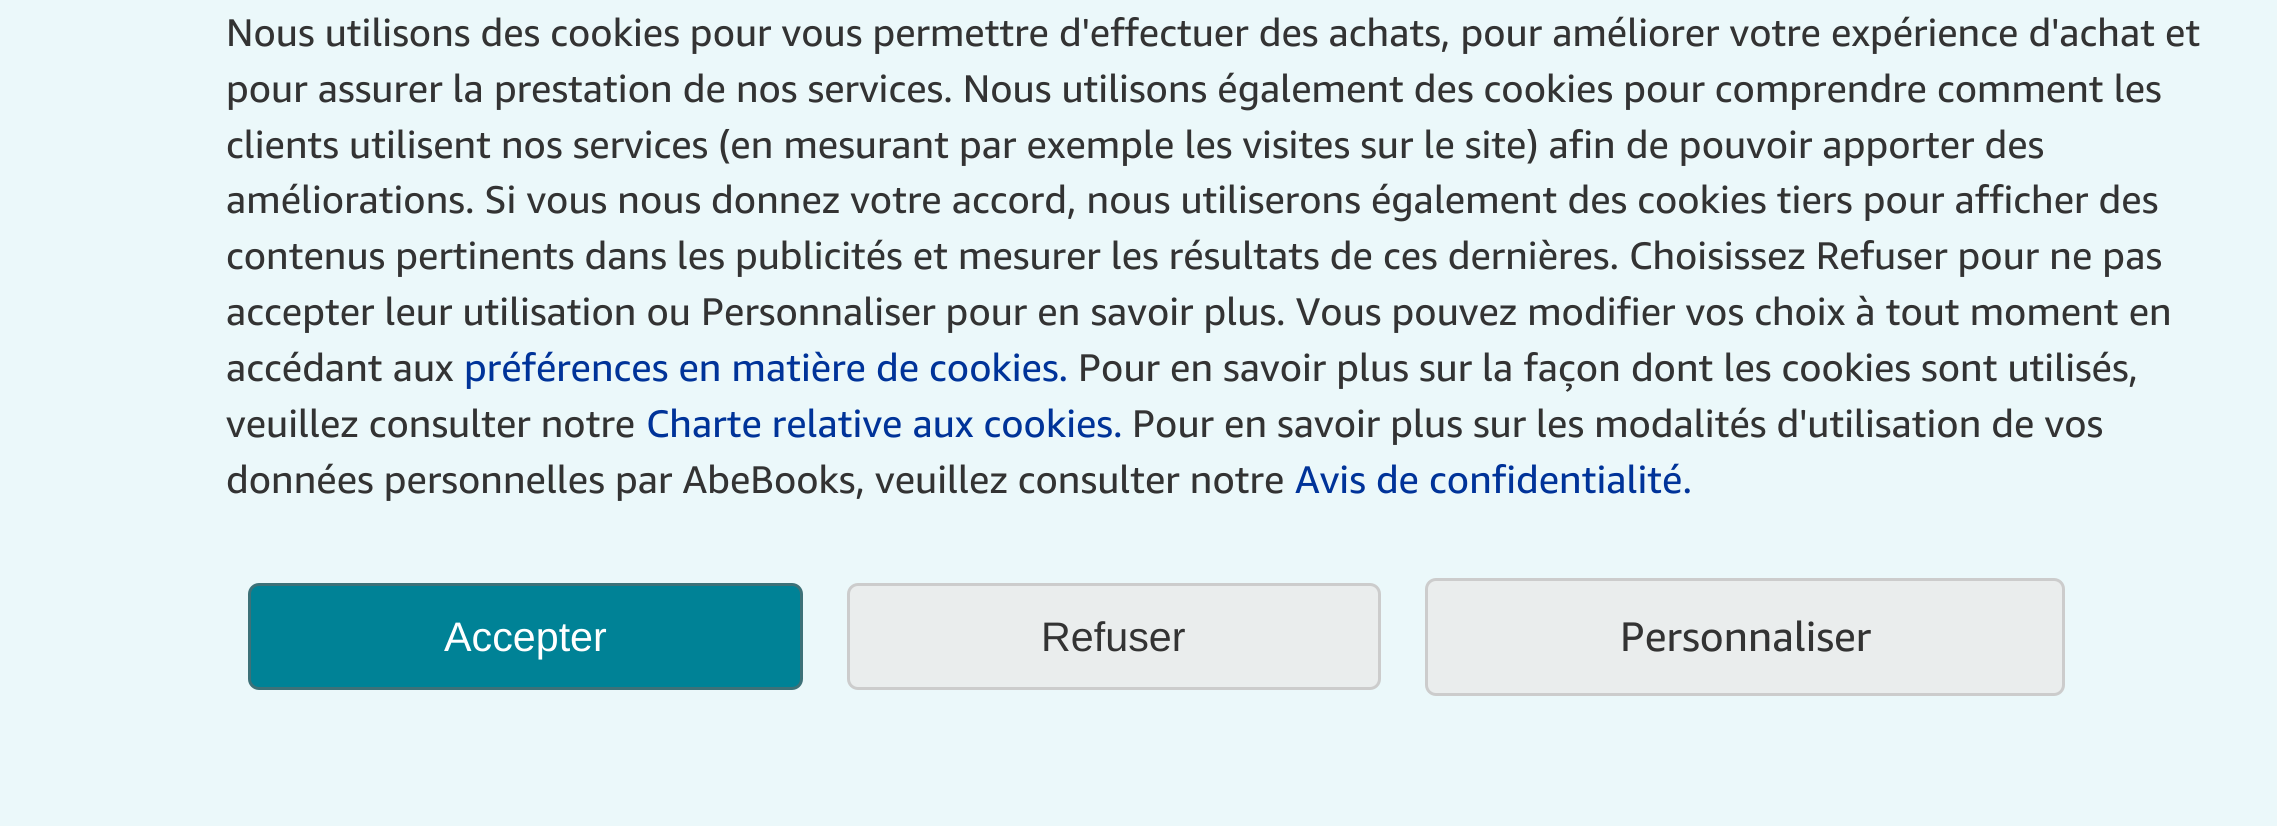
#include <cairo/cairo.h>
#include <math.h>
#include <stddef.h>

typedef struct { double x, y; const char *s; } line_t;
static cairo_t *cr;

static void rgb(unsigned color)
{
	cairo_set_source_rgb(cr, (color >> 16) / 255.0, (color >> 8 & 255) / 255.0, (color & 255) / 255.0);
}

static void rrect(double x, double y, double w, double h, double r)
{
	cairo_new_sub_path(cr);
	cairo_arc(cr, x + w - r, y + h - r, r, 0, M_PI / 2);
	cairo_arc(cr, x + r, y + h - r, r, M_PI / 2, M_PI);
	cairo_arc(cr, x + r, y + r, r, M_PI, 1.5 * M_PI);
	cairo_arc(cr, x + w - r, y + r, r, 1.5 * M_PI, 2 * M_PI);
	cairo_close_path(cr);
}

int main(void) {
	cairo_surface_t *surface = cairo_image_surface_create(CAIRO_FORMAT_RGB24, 2277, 826);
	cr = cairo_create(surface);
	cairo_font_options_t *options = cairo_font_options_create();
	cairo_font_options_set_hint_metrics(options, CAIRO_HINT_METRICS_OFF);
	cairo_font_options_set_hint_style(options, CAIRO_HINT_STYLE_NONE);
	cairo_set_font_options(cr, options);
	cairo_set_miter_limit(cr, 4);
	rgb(0xebf8fa);
	cairo_paint(cr);
	rgb(0x008296);
	rrect(249.5, 584.5, 552, 104, 9.5);
	cairo_fill_preserve(cr);
	rgb(0x3d7178);
	cairo_set_line_width(cr, 3);
	cairo_stroke(cr);
	rgb(0xeaeded);
	rrect(848.5, 584.5, 531, 104, 9.5);
	cairo_fill_preserve(cr);
	rgb(0xcccccc);
	cairo_stroke(cr);
	rgb(0xeaeded);
	rrect(1426.5, 579.5, 637, 115, 9.5);
	cairo_fill_preserve(cr);
	rgb(0xcccccc);
	cairo_stroke(cr);
	cairo_select_font_face(cr, "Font", CAIRO_FONT_SLANT_NORMAL, CAIRO_FONT_WEIGHT_NORMAL);
	cairo_set_font_size(cr, 38.5);
	rgb(0x333333);
	{
		static const line_t items[] = {
			{226, 46, "Nous utilisons des cookies pour vous permettre d'effectuer des achats, pour améliorer votre expérience d'achat et"},
			{226, 102, "pour assurer la prestation de nos services. Nous utilisons également des cookies pour comprendre comment les"},
			{226, 158, "clients utilisent nos services (en mesurant par exemple les visites sur le site) afin de pouvoir apporter des"},
			{226, 213, "améliorations. Si vous nous donnez votre accord, nous utiliserons également des cookies tiers pour afficher des"},
			{226, 269, "contenus pertinents dans les publicités et mesurer les résultats de ces dernières. Choisissez Refuser pour ne pas"},
			{226, 325, "accepter leur utilisation ou Personnaliser pour en savoir plus. Vous pouvez modifier vos choix à tout moment en"},
			{226, 381, "accédant aux"},
		};
		for (size_t i = 0; i < sizeof items / sizeof *items; i++) {
			cairo_move_to(cr, items[i].x, items[i].y);
			cairo_show_text(cr, items[i].s);
		}
	}
	rgb(0x003399);
	cairo_move_to(cr, 464, 381);
	cairo_show_text(cr, "préférences en matière de cookies.");
	rgb(0x333333);
	cairo_move_to(cr, 1078, 381);
	cairo_show_text(cr, "Pour en savoir plus sur la façon dont les cookies sont utilisés,");
	cairo_move_to(cr, 226, 437);
	cairo_show_text(cr, "veuillez consulter notre");
	rgb(0x003399);
	cairo_move_to(cr, 646, 437);
	cairo_show_text(cr, "Charte relative aux cookies.");
	rgb(0x333333);
	cairo_move_to(cr, 1132, 437);
	cairo_show_text(cr, "Pour en savoir plus sur les modalités d'utilisation de vos");
	cairo_move_to(cr, 226, 493);
	cairo_show_text(cr, "données personnelles par AbeBooks, veuillez consulter notre");
	rgb(0x003399);
	cairo_move_to(cr, 1295, 493);
	cairo_show_text(cr, "Avis de confidentialité.");
	cairo_select_font_face(cr, "Liberation Sans", CAIRO_FONT_SLANT_NORMAL, CAIRO_FONT_WEIGHT_NORMAL);
	cairo_set_font_size(cr, 41.25);
	rgb(0xffffff);
	cairo_move_to(cr, 444, 651);
	cairo_show_text(cr, "Accepter");
	rgb(0x333333);
	cairo_move_to(cr, 1041, 651);
	cairo_show_text(cr, "Refuser");
	cairo_select_font_face(cr, "Font", CAIRO_FONT_SLANT_NORMAL, CAIRO_FONT_WEIGHT_NORMAL);
	cairo_move_to(cr, 1620, 651);
	cairo_show_text(cr, "Personnaliser");
	cairo_surface_write_to_png(surface, "page.png");
	cairo_font_options_destroy(options);
	cairo_destroy(cr);
	cairo_surface_destroy(surface);
	return 0;
}
